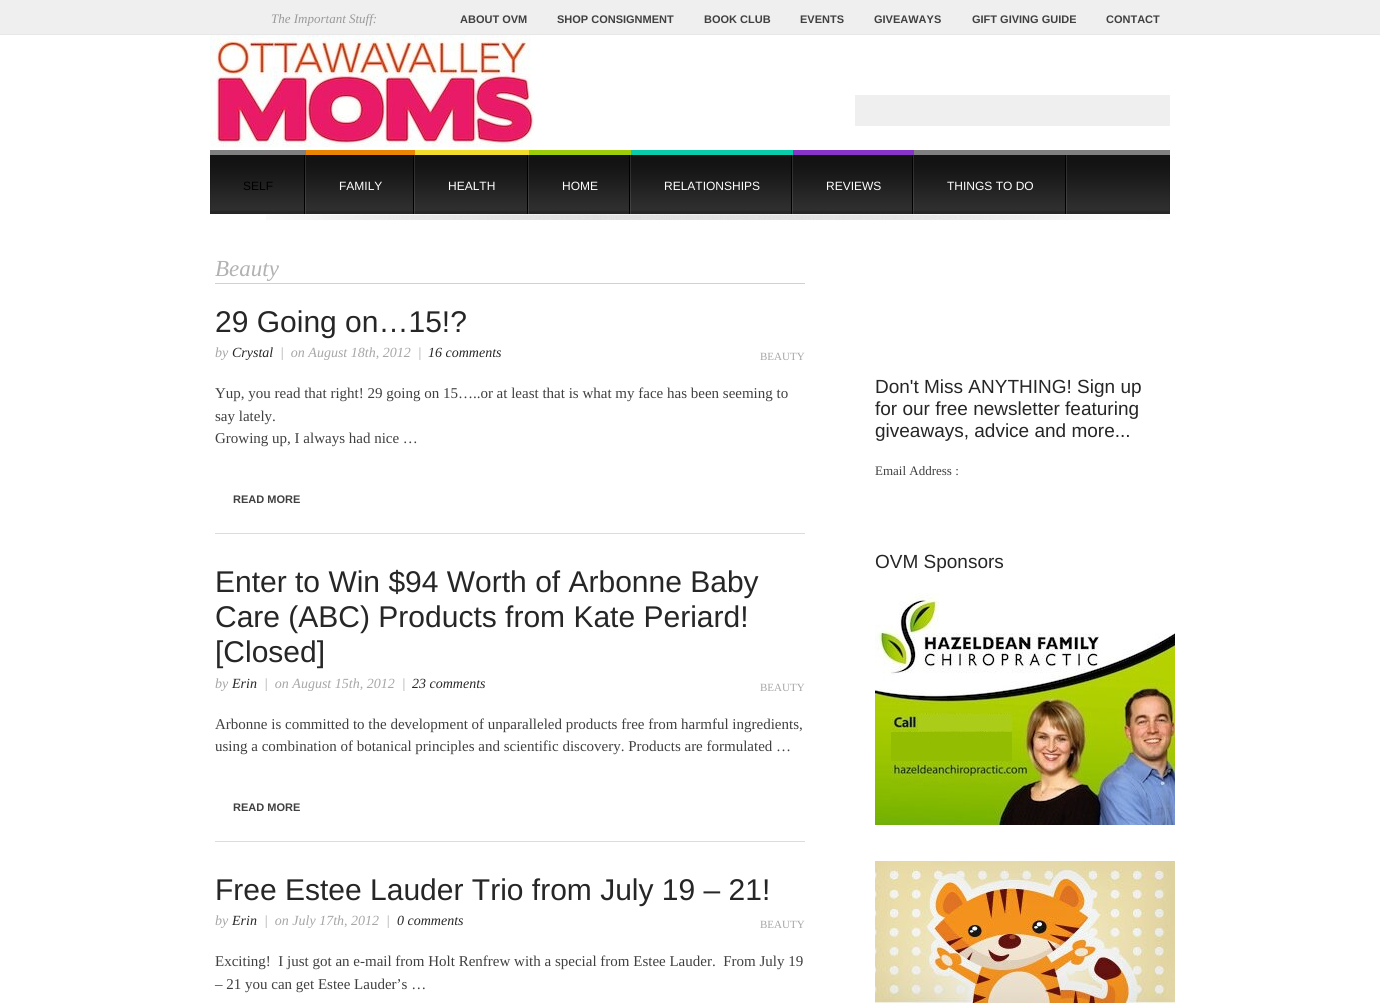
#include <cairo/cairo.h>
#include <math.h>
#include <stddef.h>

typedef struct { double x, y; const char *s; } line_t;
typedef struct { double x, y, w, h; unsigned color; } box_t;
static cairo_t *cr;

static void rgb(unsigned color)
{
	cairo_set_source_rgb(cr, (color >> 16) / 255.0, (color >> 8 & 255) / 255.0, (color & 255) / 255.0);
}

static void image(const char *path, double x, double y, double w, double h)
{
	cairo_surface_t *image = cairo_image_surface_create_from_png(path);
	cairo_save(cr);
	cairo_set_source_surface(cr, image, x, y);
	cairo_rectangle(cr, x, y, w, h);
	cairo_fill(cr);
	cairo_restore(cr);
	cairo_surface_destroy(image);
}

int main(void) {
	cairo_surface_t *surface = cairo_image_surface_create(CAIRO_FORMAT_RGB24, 1380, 1003);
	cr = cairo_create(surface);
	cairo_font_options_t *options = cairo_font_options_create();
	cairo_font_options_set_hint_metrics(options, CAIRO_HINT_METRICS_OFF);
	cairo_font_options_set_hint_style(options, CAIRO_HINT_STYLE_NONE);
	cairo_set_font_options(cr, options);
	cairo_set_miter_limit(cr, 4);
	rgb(0xffffff);
	cairo_paint(cr);
	rgb(0xefefef);
	cairo_rectangle(cr, 0, 0, 1380, 34);
	cairo_fill(cr);
	rgb(0xe7e7e7);
	cairo_rectangle(cr, 0, 34, 1380, 1);
	cairo_fill(cr);
	image("img/1.png", 210, 35, 325, 112);
	rgb(0xefefef);
	cairo_rectangle(cr, 855, 95, 315, 31);
	cairo_fill(cr);
	image("img/2.png", 210, 150, 960, 70);
	image("img/3.png", 304, 155, 2, 59);
	image("img/3.png", 413, 155, 2, 59);
	rgb(0xe98503);
	cairo_rectangle(cr, 306, 150, 109, 5);
	cairo_fill(cr);
	image("img/3.png", 527, 155, 2, 59);
	rgb(0xf1dc2b);
	cairo_rectangle(cr, 415, 150, 114, 5);
	cairo_fill(cr);
	image("img/3.png", 629, 155, 2, 59);
	rgb(0x9ccc0a);
	cairo_rectangle(cr, 529, 150, 102, 5);
	cairo_fill(cr);
	image("img/3.png", 791, 155, 2, 59);
	rgb(0x0accaa);
	cairo_rectangle(cr, 631, 150, 162, 5);
	cairo_fill(cr);
	image("img/3.png", 912, 155, 2, 59);
	rgb(0x8734c8);
	cairo_rectangle(cr, 793, 150, 121, 5);
	cairo_fill(cr);
	image("img/3.png", 1065, 155, 2, 59);
	{
		static const box_t items[] = {
			{215, 283, 590, 1, 0xd1d1d1},
			{215, 533, 590, 1, 0xdcdcdc},
			{215, 841, 590, 1, 0xdcdcdc},
		};
		for (size_t i = 0; i < sizeof items / sizeof *items; i++) {
			rgb(items[i].color);
			cairo_rectangle(cr, items[i].x, items[i].y, items[i].w, items[i].h);
			cairo_fill(cr);
		}
	}
	image("img/4.png", 875, 593, 300, 232);
	image("img/5.png", 875, 861, 300, 142);
	cairo_select_font_face(cr, "Liberation Serif", CAIRO_FONT_SLANT_ITALIC, CAIRO_FONT_WEIGHT_NORMAL);
	cairo_set_font_size(cr, 13);
	rgb(0x999999);
	cairo_move_to(cr, 271, 23);
	cairo_show_text(cr, "The Important Stuff:");
	cairo_select_font_face(cr, "Liberation Sans", CAIRO_FONT_SLANT_NORMAL, CAIRO_FONT_WEIGHT_BOLD);
	cairo_set_font_size(cr, 11);
	rgb(0x404040);
	{
		static const line_t items[] = {
			{460, 23, "ABOUT OVM"},
			{557, 23, "SHOP CONSIGNMENT"},
			{704, 23, "BOOK CLUB"},
			{800, 23, "EVENTS"},
			{874, 23, "GIVEAWAYS"},
			{972, 23, "GIFT GIVING GUIDE"},
			{1106, 23, "CONTACT"},
		};
		for (size_t i = 0; i < sizeof items / sizeof *items; i++) {
			cairo_move_to(cr, items[i].x, items[i].y);
			cairo_show_text(cr, items[i].s);
		}
	}
	cairo_select_font_face(cr, "Liberation Sans", CAIRO_FONT_SLANT_NORMAL, CAIRO_FONT_WEIGHT_NORMAL);
	cairo_set_font_size(cr, 12);
	rgb(0x000000);
	cairo_move_to(cr, 243, 190);
	cairo_show_text(cr, "SELF");
	rgb(0xffffff);
	{
		static const line_t items[] = {
			{339, 190, "FAMILY"},
			{448, 190, "HEALTH"},
			{562, 190, "HOME"},
			{664, 190, "RELATIONSHIPS"},
			{826, 190, "REVIEWS"},
			{947, 190, "THINGS TO DO"},
		};
		for (size_t i = 0; i < sizeof items / sizeof *items; i++) {
			cairo_move_to(cr, items[i].x, items[i].y);
			cairo_show_text(cr, items[i].s);
		}
	}
	cairo_select_font_face(cr, "Liberation Serif", CAIRO_FONT_SLANT_ITALIC, CAIRO_FONT_WEIGHT_NORMAL);
	cairo_set_font_size(cr, 23);
	rgb(0xb2b2b2);
	cairo_move_to(cr, 215, 276);
	cairo_show_text(cr, "Beauty");
	cairo_select_font_face(cr, "Liberation Sans", CAIRO_FONT_SLANT_NORMAL, CAIRO_FONT_WEIGHT_NORMAL);
	cairo_set_font_size(cr, 30);
	rgb(0x262626);
	cairo_move_to(cr, 215, 332);
	cairo_show_text(cr, "29 Going on…15!?");
	cairo_select_font_face(cr, "Liberation Serif", CAIRO_FONT_SLANT_ITALIC, CAIRO_FONT_WEIGHT_NORMAL);
	cairo_set_font_size(cr, 14);
	rgb(0xa6a6a6);
	cairo_move_to(cr, 215, 357);
	cairo_show_text(cr, "by");
	rgb(0x262626);
	cairo_move_to(cr, 232, 357);
	cairo_show_text(cr, "Crystal");
	rgb(0xa6a6a6);
	cairo_move_to(cr, 280, 357);
	cairo_show_text(cr, "|  on August 18th, 2012  |");
	rgb(0x262626);
	cairo_move_to(cr, 428, 357);
	cairo_show_text(cr, "16 comments");
	cairo_select_font_face(cr, "Liberation Serif", CAIRO_FONT_SLANT_NORMAL, CAIRO_FONT_WEIGHT_NORMAL);
	cairo_set_font_size(cr, 11);
	rgb(0xa6a6a6);
	cairo_move_to(cr, 760, 360);
	cairo_show_text(cr, "BEAUTY");
	cairo_set_font_size(cr, 15);
	rgb(0x404040);
	{
		static const line_t items[] = {
			{215, 398, "Yup, you read that right! 29 going on 15…..or at least that is what my face has been seeming to"},
			{215, 421, "say lately."},
			{215, 443, "Growing up, I always had nice …"},
		};
		for (size_t i = 0; i < sizeof items / sizeof *items; i++) {
			cairo_move_to(cr, items[i].x, items[i].y);
			cairo_show_text(cr, items[i].s);
		}
	}
	cairo_select_font_face(cr, "Liberation Sans", CAIRO_FONT_SLANT_NORMAL, CAIRO_FONT_WEIGHT_BOLD);
	cairo_set_font_size(cr, 11);
	cairo_move_to(cr, 233, 503);
	cairo_show_text(cr, "READ MORE");
	cairo_select_font_face(cr, "Liberation Sans", CAIRO_FONT_SLANT_NORMAL, CAIRO_FONT_WEIGHT_NORMAL);
	cairo_set_font_size(cr, 30);
	rgb(0x262626);
	{
		static const line_t items[] = {
			{215, 592, "Enter to Win $94 Worth of Arbonne Baby"},
			{215, 627, "Care (ABC) Products from Kate Periard!"},
			{215, 662, "[Closed]"},
		};
		for (size_t i = 0; i < sizeof items / sizeof *items; i++) {
			cairo_move_to(cr, items[i].x, items[i].y);
			cairo_show_text(cr, items[i].s);
		}
	}
	cairo_select_font_face(cr, "Liberation Serif", CAIRO_FONT_SLANT_ITALIC, CAIRO_FONT_WEIGHT_NORMAL);
	cairo_set_font_size(cr, 14);
	rgb(0xa6a6a6);
	cairo_move_to(cr, 215, 688);
	cairo_show_text(cr, "by");
	rgb(0x262626);
	cairo_move_to(cr, 232, 688);
	cairo_show_text(cr, "Erin");
	rgb(0xa6a6a6);
	cairo_move_to(cr, 264, 688);
	cairo_show_text(cr, "|  on August 15th, 2012  |");
	rgb(0x262626);
	cairo_move_to(cr, 412, 688);
	cairo_show_text(cr, "23 comments");
	cairo_select_font_face(cr, "Liberation Serif", CAIRO_FONT_SLANT_NORMAL, CAIRO_FONT_WEIGHT_NORMAL);
	cairo_set_font_size(cr, 11);
	rgb(0xa6a6a6);
	cairo_move_to(cr, 760, 691);
	cairo_show_text(cr, "BEAUTY");
	cairo_set_font_size(cr, 15);
	rgb(0x404040);
	cairo_move_to(cr, 215, 729);
	cairo_show_text(cr, "Arbonne is committed to the development of unparalleled products free from harmful ingredients,");
	cairo_move_to(cr, 215, 751);
	cairo_show_text(cr, "using a combination of botanical principles and scientific discovery. Products are formulated …");
	cairo_select_font_face(cr, "Liberation Sans", CAIRO_FONT_SLANT_NORMAL, CAIRO_FONT_WEIGHT_BOLD);
	cairo_set_font_size(cr, 11);
	cairo_move_to(cr, 233, 811);
	cairo_show_text(cr, "READ MORE");
	cairo_select_font_face(cr, "Liberation Sans", CAIRO_FONT_SLANT_NORMAL, CAIRO_FONT_WEIGHT_NORMAL);
	cairo_set_font_size(cr, 30);
	rgb(0x262626);
	cairo_move_to(cr, 215, 900);
	cairo_show_text(cr, "Free Estee Lauder Trio from July 19 – 21!");
	cairo_select_font_face(cr, "Liberation Serif", CAIRO_FONT_SLANT_ITALIC, CAIRO_FONT_WEIGHT_NORMAL);
	cairo_set_font_size(cr, 14);
	rgb(0xa6a6a6);
	cairo_move_to(cr, 215, 925);
	cairo_show_text(cr, "by");
	rgb(0x262626);
	cairo_move_to(cr, 232, 925);
	cairo_show_text(cr, "Erin");
	rgb(0xa6a6a6);
	cairo_move_to(cr, 264, 925);
	cairo_show_text(cr, "|  on July 17th, 2012  |");
	rgb(0x262626);
	cairo_move_to(cr, 397, 925);
	cairo_show_text(cr, "0 comments");
	cairo_select_font_face(cr, "Liberation Serif", CAIRO_FONT_SLANT_NORMAL, CAIRO_FONT_WEIGHT_NORMAL);
	cairo_set_font_size(cr, 11);
	rgb(0xa6a6a6);
	cairo_move_to(cr, 760, 928);
	cairo_show_text(cr, "BEAUTY");
	cairo_set_font_size(cr, 15);
	rgb(0x404040);
	cairo_move_to(cr, 215, 966);
	cairo_show_text(cr, "Exciting!  I just got an e-mail from Holt Renfrew with a special from Estee Lauder.  From July 19");
	cairo_move_to(cr, 215, 989);
	cairo_show_text(cr, "– 21 you can get Estee Lauder’s …");
	cairo_select_font_face(cr, "Liberation Sans", CAIRO_FONT_SLANT_NORMAL, CAIRO_FONT_WEIGHT_NORMAL);
	cairo_set_font_size(cr, 19);
	rgb(0x262626);
	{
		static const line_t items[] = {
			{875, 393, "Don't Miss ANYTHING! Sign up"},
			{875, 415, "for our free newsletter featuring"},
			{875, 437, "giveaways, advice and more..."},
		};
		for (size_t i = 0; i < sizeof items / sizeof *items; i++) {
			cairo_move_to(cr, items[i].x, items[i].y);
			cairo_show_text(cr, items[i].s);
		}
	}
	cairo_select_font_face(cr, "Liberation Serif", CAIRO_FONT_SLANT_NORMAL, CAIRO_FONT_WEIGHT_NORMAL);
	cairo_set_font_size(cr, 13);
	rgb(0x404040);
	cairo_move_to(cr, 875, 475);
	cairo_show_text(cr, "Email Address :");
	cairo_select_font_face(cr, "Liberation Sans", CAIRO_FONT_SLANT_NORMAL, CAIRO_FONT_WEIGHT_NORMAL);
	cairo_set_font_size(cr, 19);
	rgb(0x262626);
	cairo_move_to(cr, 875, 568);
	cairo_show_text(cr, "OVM Sponsors");
	cairo_surface_write_to_png(surface, "page.png");
	cairo_font_options_destroy(options);
	cairo_destroy(cr);
	cairo_surface_destroy(surface);
	return 0;
}
